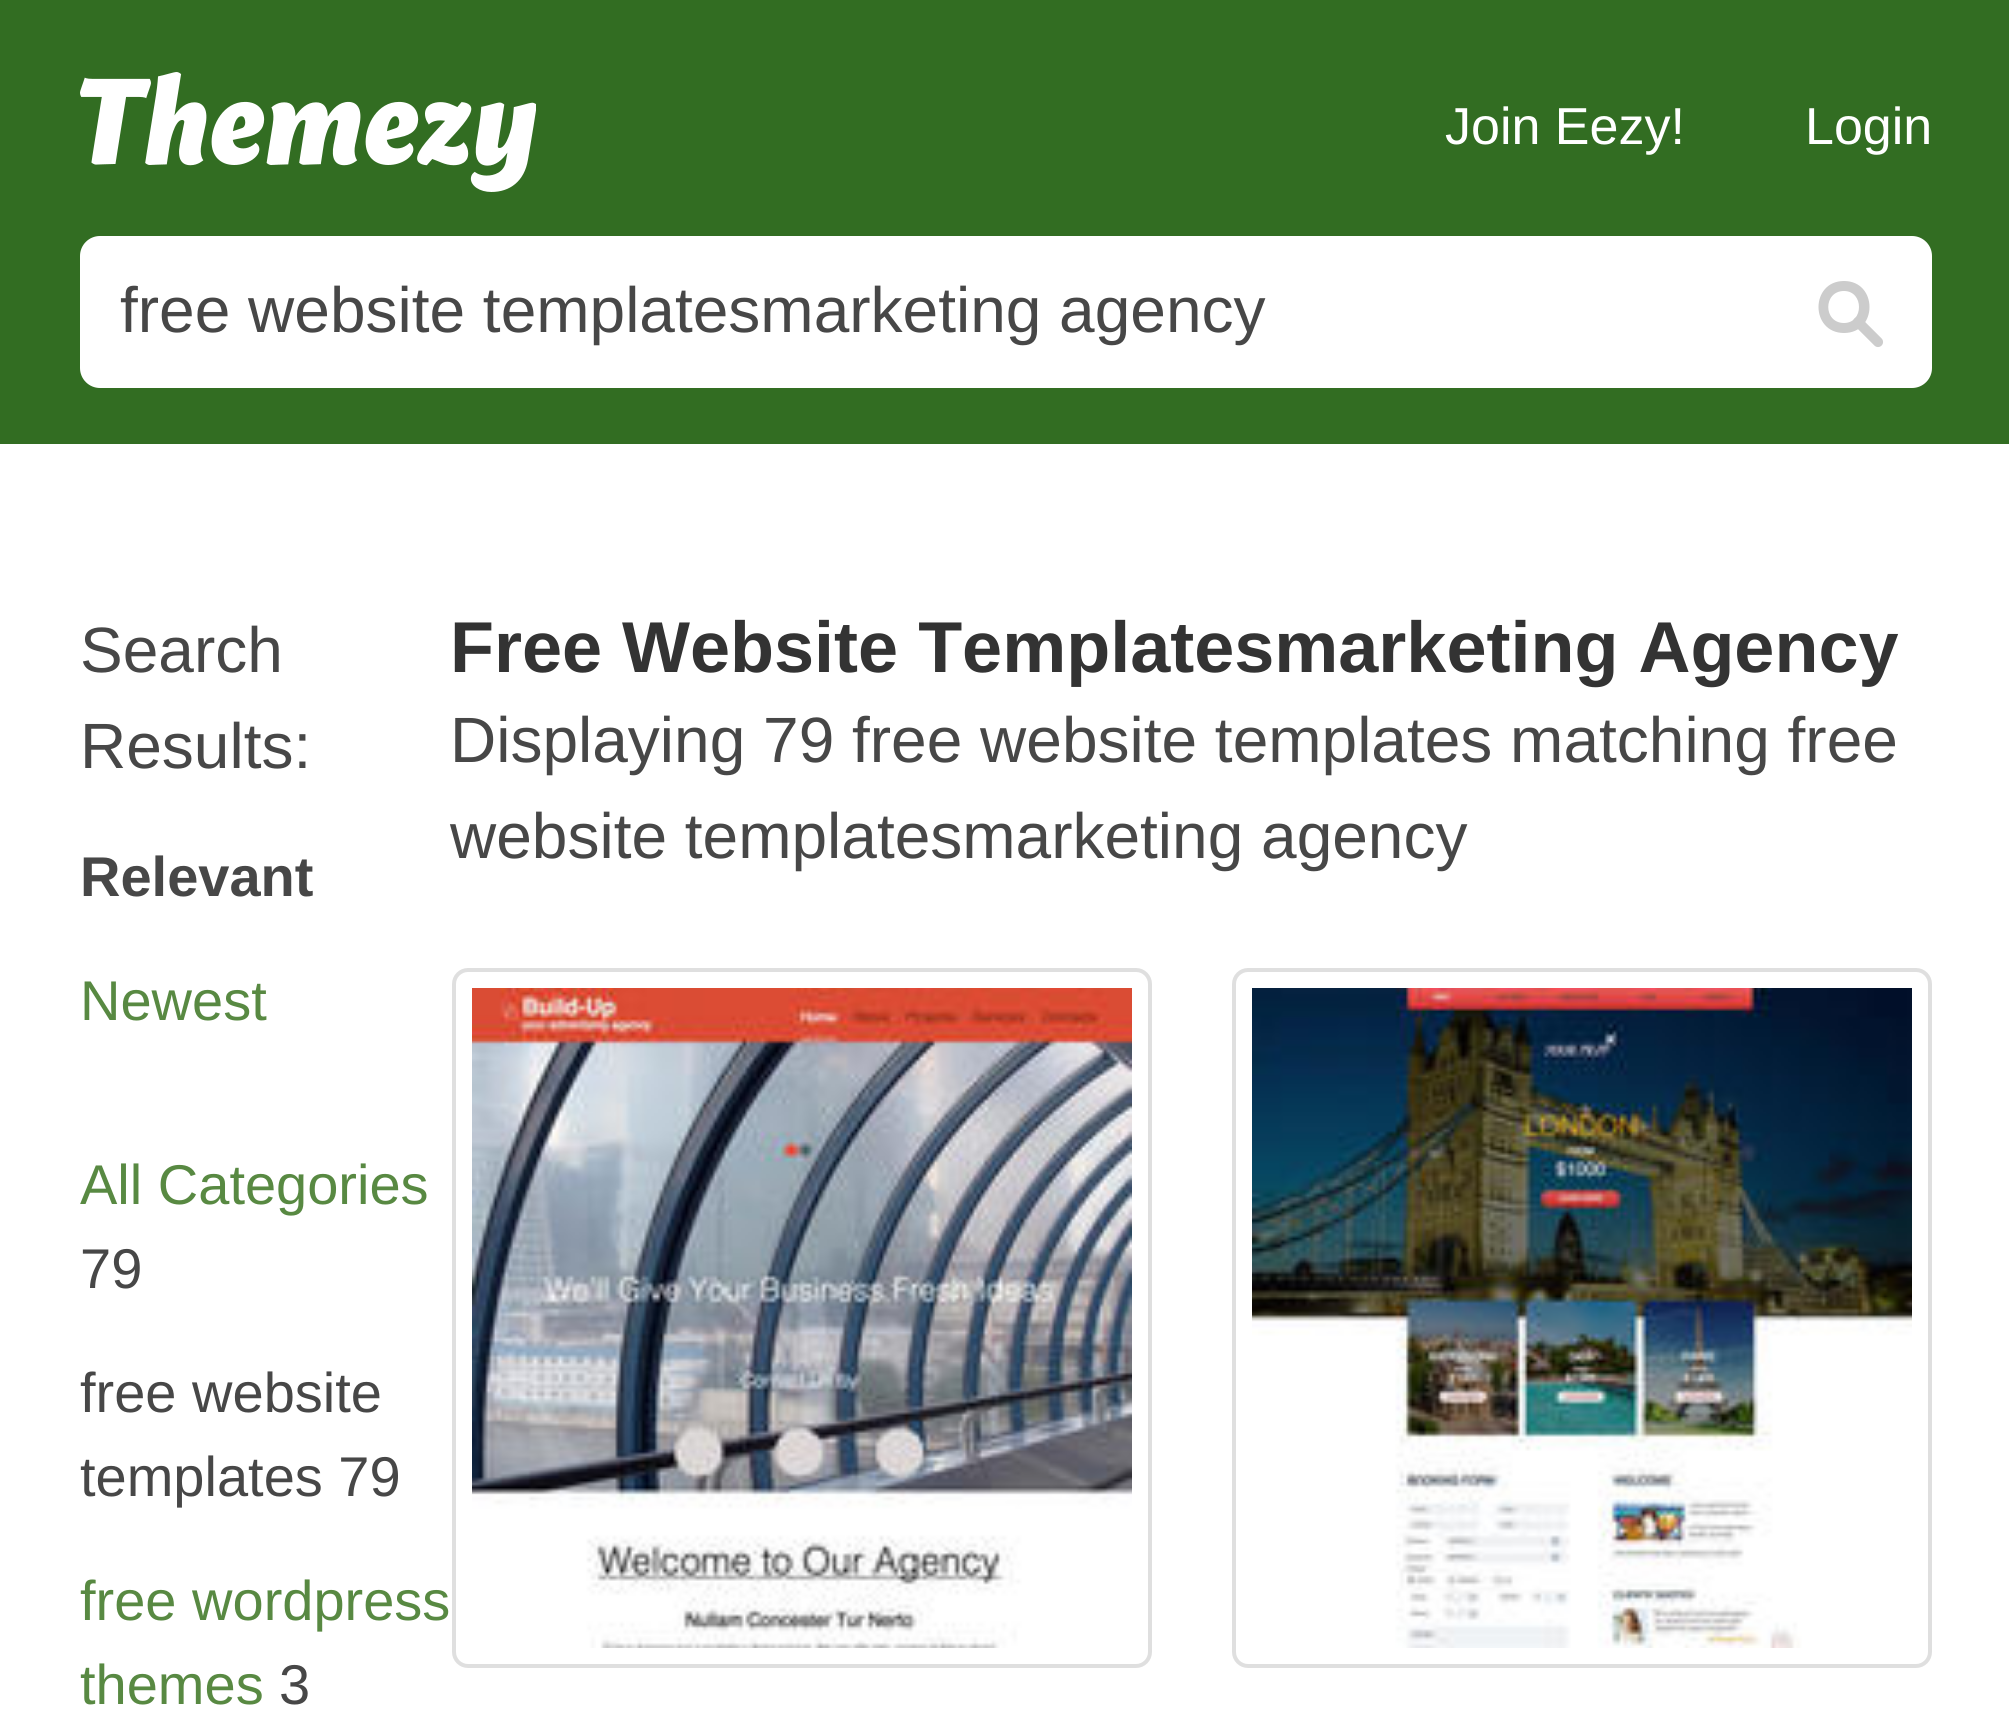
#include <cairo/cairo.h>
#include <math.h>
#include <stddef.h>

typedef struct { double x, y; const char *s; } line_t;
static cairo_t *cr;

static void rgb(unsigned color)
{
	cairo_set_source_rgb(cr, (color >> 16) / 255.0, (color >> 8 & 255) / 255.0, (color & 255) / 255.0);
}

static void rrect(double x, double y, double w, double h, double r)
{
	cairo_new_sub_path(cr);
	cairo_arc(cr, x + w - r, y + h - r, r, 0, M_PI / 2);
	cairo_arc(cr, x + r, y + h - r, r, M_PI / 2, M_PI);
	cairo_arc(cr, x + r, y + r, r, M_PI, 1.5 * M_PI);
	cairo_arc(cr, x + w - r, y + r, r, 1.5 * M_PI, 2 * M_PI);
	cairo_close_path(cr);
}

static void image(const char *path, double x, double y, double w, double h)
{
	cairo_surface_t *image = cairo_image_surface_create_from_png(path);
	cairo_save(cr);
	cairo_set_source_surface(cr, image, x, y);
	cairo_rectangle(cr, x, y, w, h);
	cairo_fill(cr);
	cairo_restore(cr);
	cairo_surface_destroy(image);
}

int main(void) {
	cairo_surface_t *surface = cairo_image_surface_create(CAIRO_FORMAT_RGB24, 2009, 1729);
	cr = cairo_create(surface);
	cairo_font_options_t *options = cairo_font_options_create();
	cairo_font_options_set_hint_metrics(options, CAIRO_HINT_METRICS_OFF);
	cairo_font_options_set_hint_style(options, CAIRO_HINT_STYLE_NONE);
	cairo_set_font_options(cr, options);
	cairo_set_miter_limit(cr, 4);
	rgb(0xffffff);
	cairo_paint(cr);
	rgb(0x326d22);
	cairo_rectangle(cr, 0, 0, 2009, 444);
	cairo_fill(cr);
	image("img/1.png", 80, 72, 456, 120);
	rgb(0xffffff);
	rrect(80, 236, 1852, 152, 20);
	cairo_fill(cr);
	rgb(0xcccccc);
	cairo_new_path(cr);
	cairo_move_to(cr, 1844, 291);
	cairo_curve_to(cr, 1864, 291, 1864, 323, 1844, 323);
	cairo_curve_to(cr, 1823, 323, 1823, 291, 1844, 291);
	cairo_move_to(cr, 1844, 281);
	cairo_curve_to(cr, 1810, 281, 1810, 333, 1844, 333);
	cairo_curve_to(cr, 1878, 333, 1878, 281, 1844, 281);
	cairo_close_path(cr);
	cairo_fill(cr);
	cairo_new_path(cr);
	cairo_move_to(cr, 1858, 322);
	cairo_line_to(cr, 1878, 342);
	cairo_set_line_width(cr, 10.1);
	cairo_set_line_cap(cr, CAIRO_LINE_CAP_ROUND);
	cairo_set_line_join(cr, CAIRO_LINE_JOIN_ROUND);
	cairo_stroke(cr);
	rrect(454, 970, 696, 696, 14);
	rgb(0xdfdfdf);
	cairo_set_line_width(cr, 4);
	cairo_set_line_cap(cr, CAIRO_LINE_CAP_BUTT);
	cairo_set_line_join(cr, CAIRO_LINE_JOIN_MITER);
	cairo_stroke(cr);
	image("img/2.png", 472, 988, 660, 660);
	rrect(1234, 970, 696, 696, 14);
	cairo_stroke(cr);
	image("img/3.png", 1252, 988, 660, 660);
	cairo_select_font_face(cr, "Liberation Sans", CAIRO_FONT_SLANT_NORMAL, CAIRO_FONT_WEIGHT_NORMAL);
	cairo_set_font_size(cr, 52);
	rgb(0xffffff);
	cairo_move_to(cr, 1445, 144);
	cairo_show_text(cr, "Join Eezy!");
	cairo_move_to(cr, 1805, 144);
	cairo_show_text(cr, "Login");
	cairo_set_font_size(cr, 64);
	rgb(0x474747);
	{
		static const line_t items[] = {
			{120, 332, "free website templatesmarketing agency"},
			{80, 672, "Search"},
			{80, 768, "Results:"},
		};
		for (size_t i = 0; i < sizeof items / sizeof *items; i++) {
			cairo_move_to(cr, items[i].x, items[i].y);
			cairo_show_text(cr, items[i].s);
		}
	}
	cairo_select_font_face(cr, "Liberation Sans", CAIRO_FONT_SLANT_NORMAL, CAIRO_FONT_WEIGHT_BOLD);
	cairo_set_font_size(cr, 56);
	cairo_move_to(cr, 80, 896);
	cairo_show_text(cr, "Relevant");
	cairo_select_font_face(cr, "Liberation Sans", CAIRO_FONT_SLANT_NORMAL, CAIRO_FONT_WEIGHT_NORMAL);
	rgb(0x588942);
	cairo_move_to(cr, 80, 1020);
	cairo_show_text(cr, "Newest");
	cairo_move_to(cr, 80, 1204);
	cairo_show_text(cr, "All Categories");
	rgb(0x474747);
	{
		static const line_t items[] = {
			{80, 1288, "79"},
			{80, 1412, "free website"},
			{80, 1496, "templates 79"},
		};
		for (size_t i = 0; i < sizeof items / sizeof *items; i++) {
			cairo_move_to(cr, items[i].x, items[i].y);
			cairo_show_text(cr, items[i].s);
		}
	}
	rgb(0x588942);
	cairo_move_to(cr, 80, 1620);
	cairo_show_text(cr, "free wordpress");
	cairo_move_to(cr, 80, 1704);
	cairo_show_text(cr, "themes");
	rgb(0x474747);
	cairo_move_to(cr, 279, 1704);
	cairo_show_text(cr, "3");
	cairo_select_font_face(cr, "Liberation Sans", CAIRO_FONT_SLANT_NORMAL, CAIRO_FONT_WEIGHT_BOLD);
	cairo_set_font_size(cr, 72);
	rgb(0x333333);
	cairo_move_to(cr, 450, 672);
	cairo_show_text(cr, "Free Website Templatesmarketing Agency");
	cairo_select_font_face(cr, "Liberation Sans", CAIRO_FONT_SLANT_NORMAL, CAIRO_FONT_WEIGHT_NORMAL);
	cairo_set_font_size(cr, 64);
	rgb(0x474747);
	cairo_move_to(cr, 450, 762);
	cairo_show_text(cr, "Displaying 79 free website templates matching free");
	cairo_move_to(cr, 450, 858);
	cairo_show_text(cr, "website templatesmarketing agency");
	cairo_surface_write_to_png(surface, "page.png");
	cairo_font_options_destroy(options);
	cairo_destroy(cr);
	cairo_surface_destroy(surface);
	return 0;
}
